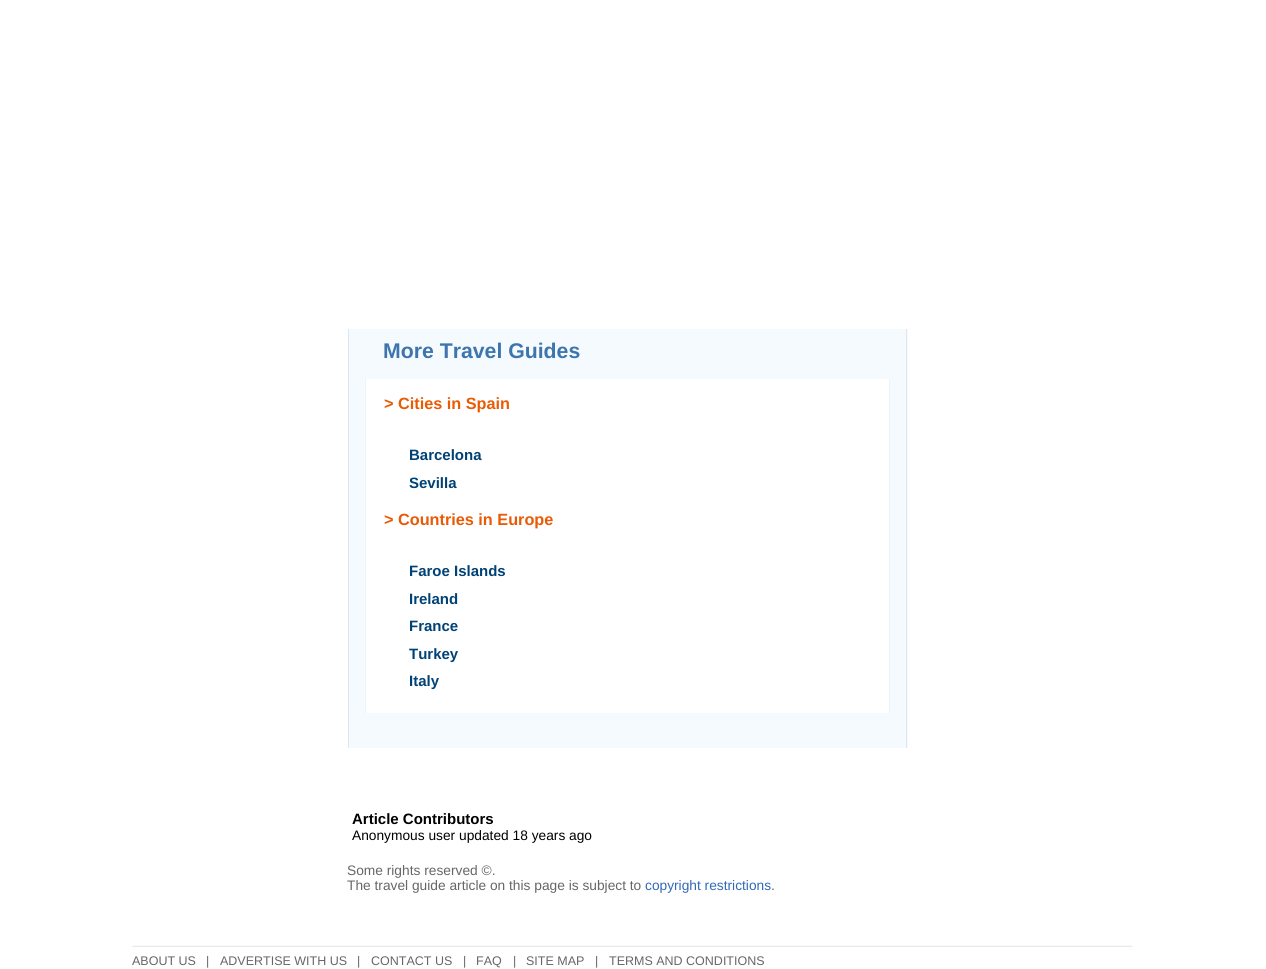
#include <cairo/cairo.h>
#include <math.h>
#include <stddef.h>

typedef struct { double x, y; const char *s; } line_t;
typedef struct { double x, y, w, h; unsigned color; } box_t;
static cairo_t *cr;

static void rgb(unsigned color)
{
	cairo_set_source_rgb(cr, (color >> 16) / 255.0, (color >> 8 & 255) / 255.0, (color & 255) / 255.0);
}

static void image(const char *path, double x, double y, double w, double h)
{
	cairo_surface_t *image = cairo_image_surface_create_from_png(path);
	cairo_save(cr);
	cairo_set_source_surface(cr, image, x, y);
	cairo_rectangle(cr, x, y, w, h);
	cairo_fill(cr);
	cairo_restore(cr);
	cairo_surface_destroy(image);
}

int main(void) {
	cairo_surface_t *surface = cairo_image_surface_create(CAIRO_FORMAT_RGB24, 1266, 969);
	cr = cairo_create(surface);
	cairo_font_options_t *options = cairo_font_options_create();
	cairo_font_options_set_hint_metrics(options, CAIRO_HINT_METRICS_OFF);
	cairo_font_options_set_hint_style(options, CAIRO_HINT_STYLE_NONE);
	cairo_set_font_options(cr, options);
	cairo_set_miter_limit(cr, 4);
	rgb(0xffffff);
	cairo_paint(cr);
	{
		static const box_t items[] = {
			{349, 329, 559, 419, 0xf5fafe},
			{906, 329, 1, 419, 0xdde6f1},
			{348, 329, 1, 419, 0xdde6f1},
			{366, 379, 523, 334, 0xffffff},
			{889, 379, 1, 334, 0xecf3fa},
			{365, 379, 1, 334, 0xecf3fa},
		};
		for (size_t i = 0; i < sizeof items / sizeof *items; i++) {
			rgb(items[i].color);
			cairo_rectangle(cr, items[i].x, items[i].y, items[i].w, items[i].h);
			cairo_fill(cr);
		}
	}
	image("img/1.png", 132, 945, 1001, 2);
	cairo_select_font_face(cr, "Liberation Sans", CAIRO_FONT_SLANT_NORMAL, CAIRO_FONT_WEIGHT_BOLD);
	cairo_set_font_size(cr, 21.25);
	rgb(0x3d75ac);
	cairo_move_to(cr, 383, 358);
	cairo_show_text(cr, "More Travel Guides");
	cairo_set_font_size(cr, 16.25);
	rgb(0xe95a05);
	cairo_move_to(cr, 384, 409);
	cairo_show_text(cr, "> Cities in Spain");
	cairo_set_font_size(cr, 15);
	rgb(0x004276);
	cairo_move_to(cr, 409, 460);
	cairo_show_text(cr, "Barcelona");
	cairo_move_to(cr, 409, 488);
	cairo_show_text(cr, "Sevilla");
	cairo_set_font_size(cr, 16.25);
	rgb(0xe95a05);
	cairo_move_to(cr, 384, 525);
	cairo_show_text(cr, "> Countries in Europe");
	cairo_set_font_size(cr, 15);
	rgb(0x004276);
	{
		static const line_t items[] = {
			{409, 576, "Faroe Islands"},
			{409, 604, "Ireland"},
			{409, 631, "France"},
			{409, 659, "Turkey"},
			{409, 686, "Italy"},
		};
		for (size_t i = 0; i < sizeof items / sizeof *items; i++) {
			cairo_move_to(cr, items[i].x, items[i].y);
			cairo_show_text(cr, items[i].s);
		}
	}
	rgb(0x000000);
	cairo_move_to(cr, 352, 824);
	cairo_show_text(cr, "Article Contributors");
	cairo_select_font_face(cr, "Liberation Sans", CAIRO_FONT_SLANT_NORMAL, CAIRO_FONT_WEIGHT_NORMAL);
	cairo_set_font_size(cr, 13.75);
	cairo_move_to(cr, 352, 840);
	cairo_show_text(cr, "Anonymous user updated 18 years ago");
	rgb(0x666666);
	cairo_move_to(cr, 347, 875);
	cairo_show_text(cr, "Some rights reserved ©.");
	cairo_move_to(cr, 347, 890);
	cairo_show_text(cr, "The travel guide article on this page is subject to");
	rgb(0x3169b5);
	cairo_move_to(cr, 645, 890);
	cairo_show_text(cr, "copyright restrictions");
	rgb(0x666666);
	cairo_move_to(cr, 771, 890);
	cairo_show_text(cr, ".");
	cairo_set_font_size(cr, 12.5);
	{
		static const line_t items[] = {
			{132, 965, "ABOUT US"},
			{206, 965, "|"},
			{220, 965, "ADVERTISE WITH US"},
			{357, 965, "|"},
			{371, 965, "CONTACT US"},
			{463, 965, "|"},
			{476, 965, "FAQ"},
			{513, 965, "|"},
			{526, 965, "SITE MAP"},
			{595, 965, "|"},
			{609, 965, "TERMS AND CONDITIONS"},
		};
		for (size_t i = 0; i < sizeof items / sizeof *items; i++) {
			cairo_move_to(cr, items[i].x, items[i].y);
			cairo_show_text(cr, items[i].s);
		}
	}
	cairo_surface_write_to_png(surface, "page.png");
	cairo_font_options_destroy(options);
	cairo_destroy(cr);
	cairo_surface_destroy(surface);
	return 0;
}
